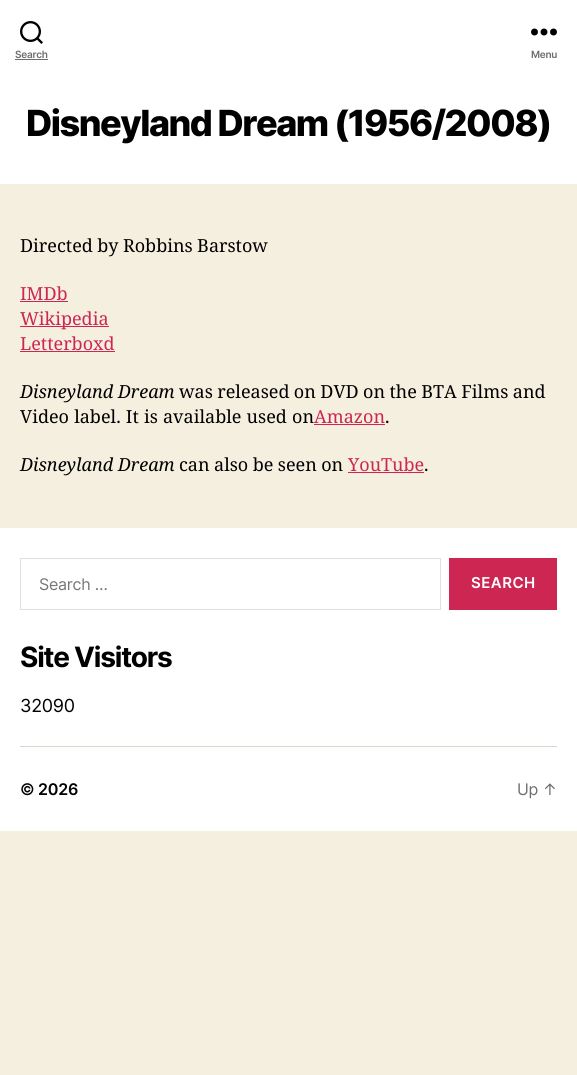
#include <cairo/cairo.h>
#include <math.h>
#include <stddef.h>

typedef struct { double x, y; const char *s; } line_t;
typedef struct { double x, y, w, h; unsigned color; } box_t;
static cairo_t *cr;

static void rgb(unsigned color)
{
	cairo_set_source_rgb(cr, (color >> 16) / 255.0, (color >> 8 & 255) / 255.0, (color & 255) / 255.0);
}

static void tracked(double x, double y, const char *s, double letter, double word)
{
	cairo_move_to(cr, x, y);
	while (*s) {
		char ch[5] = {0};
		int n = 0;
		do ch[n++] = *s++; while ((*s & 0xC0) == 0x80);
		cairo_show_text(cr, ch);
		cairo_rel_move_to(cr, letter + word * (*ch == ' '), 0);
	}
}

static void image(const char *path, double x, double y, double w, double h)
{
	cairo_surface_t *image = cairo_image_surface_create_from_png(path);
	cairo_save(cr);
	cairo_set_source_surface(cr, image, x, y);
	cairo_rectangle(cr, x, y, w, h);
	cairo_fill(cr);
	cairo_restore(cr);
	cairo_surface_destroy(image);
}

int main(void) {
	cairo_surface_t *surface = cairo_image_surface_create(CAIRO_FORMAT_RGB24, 577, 1075);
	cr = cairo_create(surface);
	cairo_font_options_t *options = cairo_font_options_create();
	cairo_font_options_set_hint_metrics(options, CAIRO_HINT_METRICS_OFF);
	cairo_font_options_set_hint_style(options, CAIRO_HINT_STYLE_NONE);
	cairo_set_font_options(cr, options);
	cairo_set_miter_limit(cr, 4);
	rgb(0xf5efe0);
	cairo_paint(cr);
	rgb(0xffffff);
	cairo_rectangle(cr, 0, 0, 577, 184);
	cairo_fill(cr);
	image("img/1.png", 20, 21, 23, 23);
	rgb(0x6d6d6d);
	cairo_rectangle(cr, 15, 59, 33, 1);
	cairo_fill(cr);
	image("img/2.png", 531, 28, 26, 8);
	{
		static const box_t items[] = {
			{20, 301, 48, 1, 0xcd2653},
			{20, 326, 89, 1, 0xcd2653},
			{20, 351, 95, 1, 0xcd2653},
			{314, 424, 71, 1, 0xcd2653},
			{348, 472, 76, 1, 0xcd2653},
			{0, 528, 577, 303, 0xffffff},
			{20, 746, 537, 1, 0xdcd7ca},
		};
		for (size_t i = 0; i < sizeof items / sizeof *items; i++) {
			rgb(items[i].color);
			cairo_rectangle(cr, items[i].x, items[i].y, items[i].w, items[i].h);
			cairo_fill(cr);
		}
	}
	cairo_rectangle(cr, 20.5, 558.5, 420, 51);
	rgb(0xdedfdf);
	cairo_set_line_width(cr, 1);
	cairo_stroke(cr);
	rgb(0xcd2653);
	cairo_rectangle(cr, 449, 558, 108, 52);
	cairo_fill(cr);
	cairo_select_font_face(cr, "Inter SemiBold", CAIRO_FONT_SLANT_NORMAL, CAIRO_FONT_WEIGHT_NORMAL);
	cairo_set_font_size(cr, 10);
	rgb(0x6d6d6d);
	tracked(15, 58, "Search", -0.25, 0);
	tracked(531, 58, "Menu", -0.25, 0);
	cairo_select_font_face(cr, "Inter ExtraBold", CAIRO_FONT_SLANT_NORMAL, CAIRO_FONT_WEIGHT_NORMAL);
	cairo_set_font_size(cr, 36);
	rgb(0x000000);
	tracked(26, 136, "Disneyland Dream (1956/2008)", -1.5, 0);
	cairo_select_font_face(cr, "Noto Serif", CAIRO_FONT_SLANT_NORMAL, CAIRO_FONT_WEIGHT_NORMAL);
	cairo_set_font_size(cr, 18);
	tracked(20, 252, "Directed by Robbins Barstow", 0, -0.25);
	rgb(0xcd2653);
	{
		static const line_t items[] = {
			{20, 300, "IMDb"},
			{20, 325, "Wikipedia"},
			{20, 350, "Letterboxd"},
		};
		for (size_t i = 0; i < sizeof items / sizeof *items; i++) {
			cairo_move_to(cr, items[i].x, items[i].y);
			cairo_show_text(cr, items[i].s);
		}
	}
	cairo_select_font_face(cr, "Noto Serif", CAIRO_FONT_SLANT_ITALIC, CAIRO_FONT_WEIGHT_NORMAL);
	rgb(0x000000);
	cairo_move_to(cr, 20, 398);
	cairo_show_text(cr, "Disneyland Dream");
	cairo_select_font_face(cr, "Noto Serif", CAIRO_FONT_SLANT_NORMAL, CAIRO_FONT_WEIGHT_NORMAL);
	tracked(179, 398, "was released on DVD on the BTA Films and", 0, -0.25);
	tracked(20, 423, "Video label. It is available used on", 0, 0.5);
	rgb(0xcd2653);
	cairo_move_to(cr, 314, 423);
	cairo_show_text(cr, "Amazon");
	rgb(0x000000);
	cairo_move_to(cr, 385, 423);
	cairo_show_text(cr, ".");
	cairo_select_font_face(cr, "Noto Serif", CAIRO_FONT_SLANT_ITALIC, CAIRO_FONT_WEIGHT_NORMAL);
	cairo_move_to(cr, 20, 471);
	cairo_show_text(cr, "Disneyland Dream");
	cairo_select_font_face(cr, "Noto Serif", CAIRO_FONT_SLANT_NORMAL, CAIRO_FONT_WEIGHT_NORMAL);
	tracked(179, 471, "can also be seen on", 0, -0.25);
	rgb(0xcd2653);
	cairo_move_to(cr, 348, 471);
	cairo_show_text(cr, "YouTube");
	rgb(0x000000);
	cairo_move_to(cr, 424, 471);
	cairo_show_text(cr, ".");
	cairo_select_font_face(cr, "Inter", CAIRO_FONT_SLANT_NORMAL, CAIRO_FONT_WEIGHT_NORMAL);
	cairo_set_font_size(cr, 16);
	rgb(0x757575);
	tracked(39, 590, "Search …", -0.25, 0);
	cairo_select_font_face(cr, "Inter SemiBold", CAIRO_FONT_SLANT_NORMAL, CAIRO_FONT_WEIGHT_NORMAL);
	cairo_set_font_size(cr, 15);
	rgb(0xffffff);
	tracked(471, 588, "SEARCH", 0.5, 0);
	cairo_select_font_face(cr, "Inter", CAIRO_FONT_SLANT_NORMAL, CAIRO_FONT_WEIGHT_BOLD);
	cairo_set_font_size(cr, 28);
	rgb(0x000000);
	tracked(20, 667, "Site Visitors", -1.2, 0);
	cairo_select_font_face(cr, "Inter", CAIRO_FONT_SLANT_NORMAL, CAIRO_FONT_WEIGHT_NORMAL);
	cairo_set_font_size(cr, 18);
	tracked(20, 712, "32090", -0.25, 0);
	cairo_select_font_face(cr, "Inter SemiBold", CAIRO_FONT_SLANT_NORMAL, CAIRO_FONT_WEIGHT_NORMAL);
	cairo_set_font_size(cr, 16);
	tracked(20, 795, "© 2026", -0.25, 0);
	cairo_select_font_face(cr, "Inter", CAIRO_FONT_SLANT_NORMAL, CAIRO_FONT_WEIGHT_NORMAL);
	rgb(0x6d6d6d);
	tracked(517, 795, "Up ↑", -0.25, 0);
	cairo_surface_write_to_png(surface, "page.png");
	cairo_font_options_destroy(options);
	cairo_destroy(cr);
	cairo_surface_destroy(surface);
	return 0;
}
